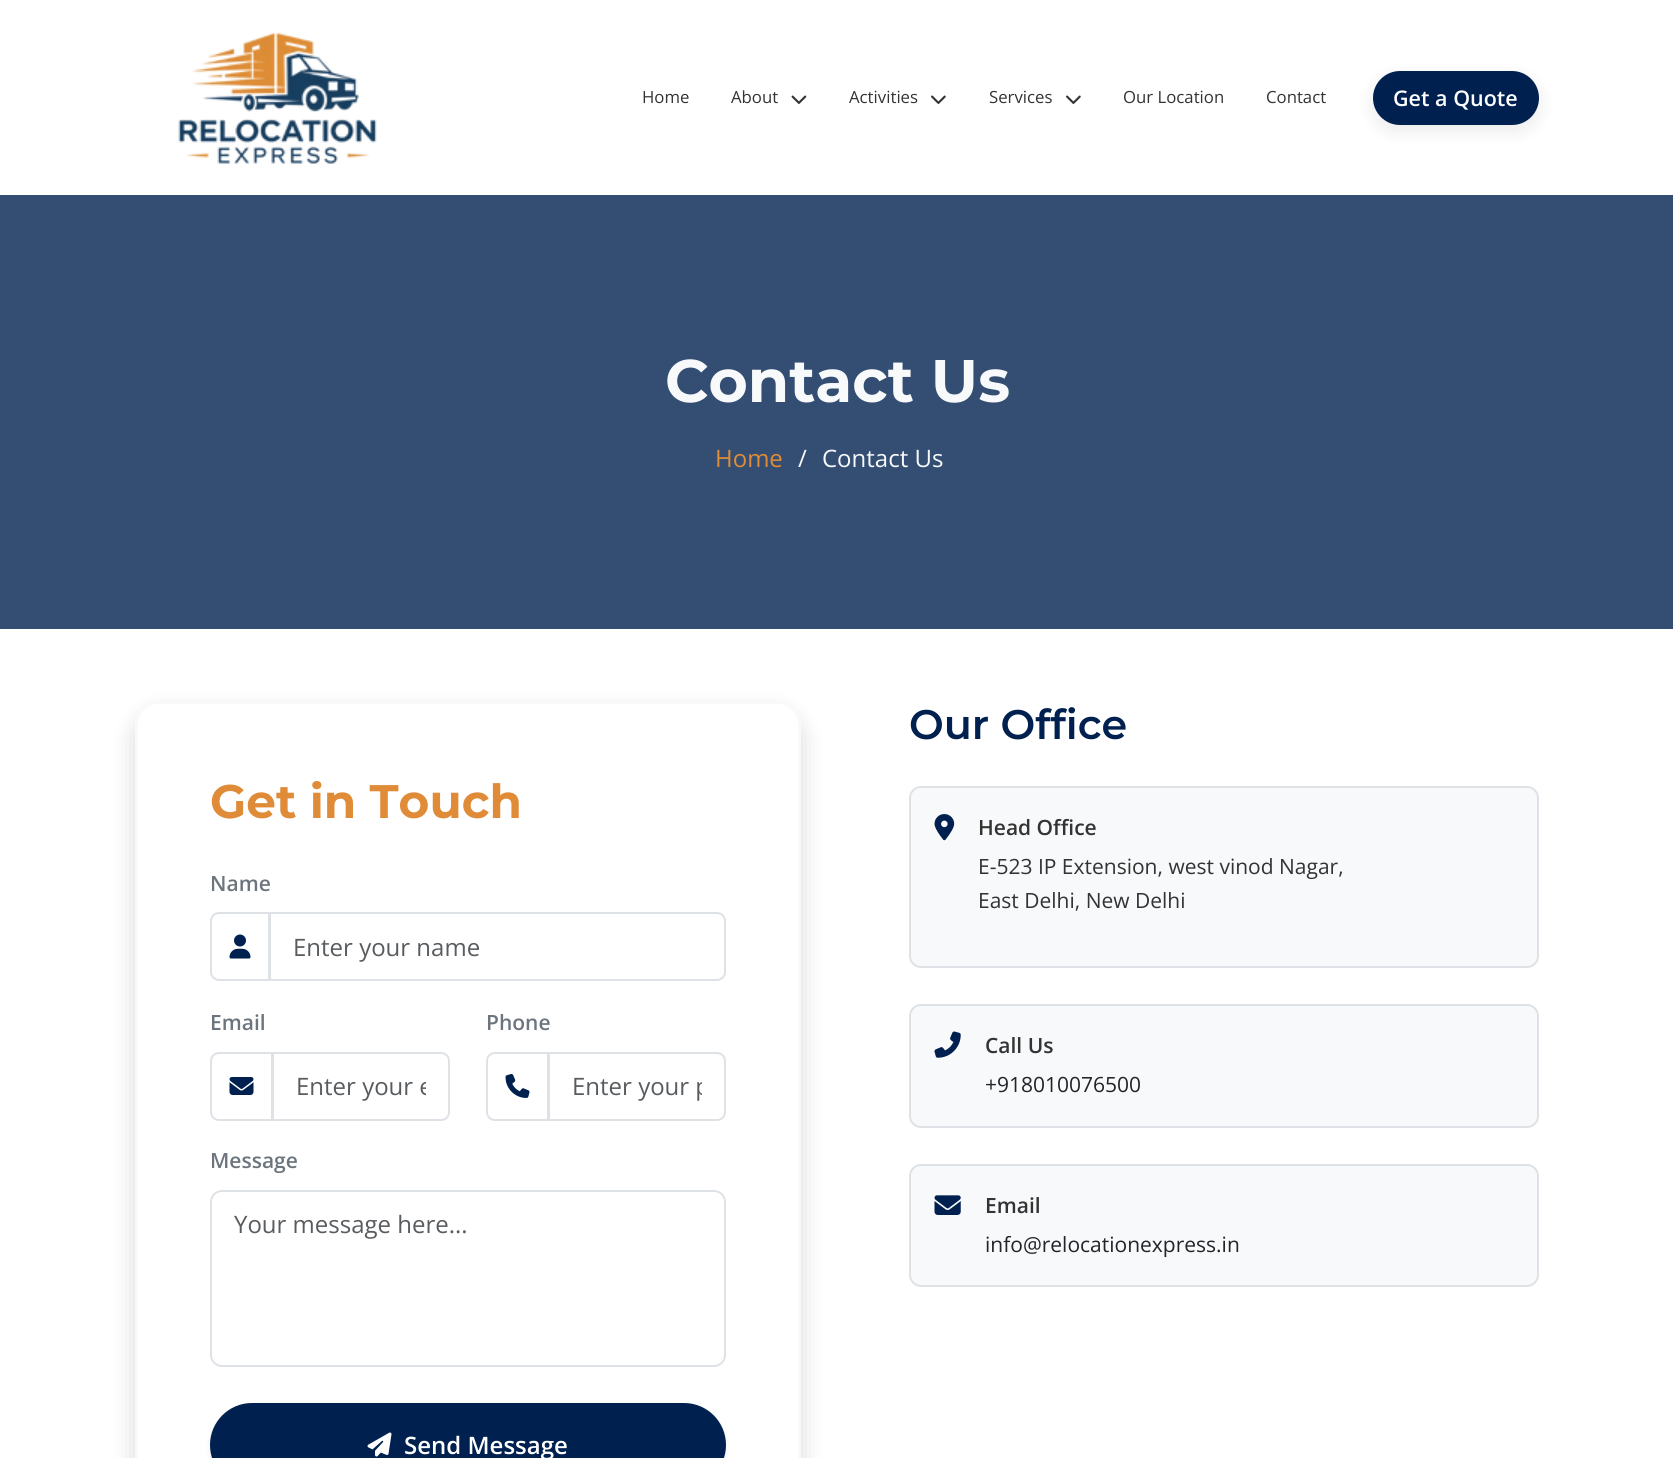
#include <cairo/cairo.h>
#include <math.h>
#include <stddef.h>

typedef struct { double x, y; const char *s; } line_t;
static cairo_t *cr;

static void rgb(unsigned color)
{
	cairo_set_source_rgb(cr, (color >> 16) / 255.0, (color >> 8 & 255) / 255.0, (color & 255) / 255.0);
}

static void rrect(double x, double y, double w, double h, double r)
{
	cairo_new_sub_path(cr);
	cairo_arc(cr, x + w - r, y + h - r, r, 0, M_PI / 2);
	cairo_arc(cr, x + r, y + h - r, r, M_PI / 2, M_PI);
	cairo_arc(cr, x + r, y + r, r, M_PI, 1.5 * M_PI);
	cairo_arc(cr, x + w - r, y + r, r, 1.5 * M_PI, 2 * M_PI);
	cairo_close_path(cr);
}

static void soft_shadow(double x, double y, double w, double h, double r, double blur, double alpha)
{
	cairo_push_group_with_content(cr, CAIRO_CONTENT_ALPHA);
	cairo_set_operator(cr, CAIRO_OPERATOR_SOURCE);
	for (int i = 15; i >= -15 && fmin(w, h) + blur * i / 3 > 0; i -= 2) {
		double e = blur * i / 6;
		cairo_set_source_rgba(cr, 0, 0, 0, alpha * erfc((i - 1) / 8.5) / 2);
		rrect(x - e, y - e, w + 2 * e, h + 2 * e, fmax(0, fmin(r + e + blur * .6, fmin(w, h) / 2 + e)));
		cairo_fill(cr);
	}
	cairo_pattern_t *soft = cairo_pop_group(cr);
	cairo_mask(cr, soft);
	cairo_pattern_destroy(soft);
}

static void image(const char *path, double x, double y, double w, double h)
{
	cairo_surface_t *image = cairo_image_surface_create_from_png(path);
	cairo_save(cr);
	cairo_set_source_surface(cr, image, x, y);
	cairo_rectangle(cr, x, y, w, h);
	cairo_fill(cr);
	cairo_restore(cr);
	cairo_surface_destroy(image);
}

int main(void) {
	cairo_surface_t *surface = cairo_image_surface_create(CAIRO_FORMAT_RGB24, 1673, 1458);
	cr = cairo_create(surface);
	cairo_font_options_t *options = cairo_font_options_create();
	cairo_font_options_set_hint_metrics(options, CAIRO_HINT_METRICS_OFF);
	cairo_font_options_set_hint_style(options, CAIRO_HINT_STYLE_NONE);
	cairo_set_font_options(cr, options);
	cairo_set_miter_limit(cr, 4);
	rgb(0xffffff);
	cairo_paint(cr);
	image("img/1.png", 178, 32, 199, 132);
	image("img/2.png", 791, 95, 16, 9);
	image("img/3.png", 931, 95, 15, 9);
	image("img/3.png", 1066, 95, 15, 9);
	rgb(0x000000);
	soft_shadow(1373, 77, 166, 54, 27, 9, 0.08);
	rgb(0x00214f);
	rrect(1373, 71, 166, 54, 27);
	cairo_fill(cr);
	rgb(0x334e72);
	cairo_rectangle(cr, 0, 195, 1673, 434);
	cairo_fill(cr);
	rgb(0x000000);
	soft_shadow(135, 713, 666, 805, 24, 12, 0.15);
	rgb(0xffffff);
	rrect(136.5, 702.5, 663, 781, 22.5);
	cairo_fill_preserve(cr);
	rgb(0xf8f9fa);
	cairo_set_line_width(cr, 3);
	cairo_stroke(cr);
	cairo_new_path(cr);
	cairo_move_to(cr, 219, 913);
	cairo_line_to(cr, 269, 913);
	cairo_line_to(cr, 269, 980);
	cairo_line_to(cr, 219, 980);
	cairo_curve_to(cr, 214.5, 980, 211, 976.5, 211, 972);
	cairo_line_to(cr, 211, 921);
	cairo_curve_to(cr, 211, 916.5, 214.5, 913, 219, 913);
	cairo_close_path(cr);
	rgb(0xdee2e6);
	cairo_set_line_width(cr, 2);
	cairo_stroke(cr);
	image("img/4.png", 229, 934, 22, 25);
	cairo_new_path(cr);
	cairo_move_to(cr, 270, 913);
	cairo_line_to(cr, 717, 913);
	cairo_curve_to(cr, 721.5, 913, 725, 916.5, 725, 921);
	cairo_line_to(cr, 725, 972);
	cairo_curve_to(cr, 725, 976.5, 721.5, 980, 717, 980);
	cairo_line_to(cr, 270, 980);
	cairo_close_path(cr);
	cairo_stroke(cr);
	cairo_new_path(cr);
	cairo_move_to(cr, 219, 1053);
	cairo_line_to(cr, 272, 1053);
	cairo_line_to(cr, 272, 1120);
	cairo_line_to(cr, 219, 1120);
	cairo_curve_to(cr, 214.5, 1120, 211, 1116.5, 211, 1112);
	cairo_line_to(cr, 211, 1061);
	cairo_curve_to(cr, 211, 1056.5, 214.5, 1053, 219, 1053);
	cairo_close_path(cr);
	cairo_stroke(cr);
	image("img/5.png", 229, 1077, 25, 18);
	cairo_new_path(cr);
	cairo_move_to(cr, 273, 1053);
	cairo_line_to(cr, 441, 1053);
	cairo_curve_to(cr, 445.5, 1053, 449, 1056.5, 449, 1061);
	cairo_line_to(cr, 449, 1112);
	cairo_curve_to(cr, 449, 1116.5, 445.5, 1120, 441, 1120);
	cairo_line_to(cr, 273, 1120);
	cairo_close_path(cr);
	cairo_stroke(cr);
	cairo_new_path(cr);
	cairo_move_to(cr, 495, 1053);
	cairo_line_to(cr, 548, 1053);
	cairo_line_to(cr, 548, 1120);
	cairo_line_to(cr, 495, 1120);
	cairo_curve_to(cr, 490.5, 1120, 487, 1116.5, 487, 1112);
	cairo_line_to(cr, 487, 1061);
	cairo_curve_to(cr, 487, 1056.5, 490.5, 1053, 495, 1053);
	cairo_close_path(cr);
	cairo_stroke(cr);
	image("img/6.png", 505, 1074, 25, 24);
	cairo_new_path(cr);
	cairo_move_to(cr, 549, 1053);
	cairo_line_to(cr, 717, 1053);
	cairo_curve_to(cr, 721.5, 1053, 725, 1056.5, 725, 1061);
	cairo_line_to(cr, 725, 1112);
	cairo_curve_to(cr, 725, 1116.5, 721.5, 1120, 717, 1120);
	cairo_line_to(cr, 549, 1120);
	cairo_close_path(cr);
	cairo_stroke(cr);
	rrect(211, 1191, 514, 175, 11);
	cairo_stroke(cr);
	rgb(0x000000);
	soft_shadow(210, 1406, 516, 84, 42, 3, 0.07);
	rgb(0x00214f);
	rrect(210, 1403, 516, 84, 42);
	cairo_fill(cr);
	image("img/7.png", 367, 1432, 25, 25);
	rgb(0xf8f9fa);
	rrect(910, 787, 628, 180, 11);
	cairo_fill_preserve(cr);
	rgb(0xdee2e6);
	cairo_stroke(cr);
	image("img/8.png", 934, 814, 21, 27);
	rgb(0xf8f9fa);
	rrect(910, 1005, 628, 122, 11);
	cairo_fill_preserve(cr);
	rgb(0xdee2e6);
	cairo_stroke(cr);
	image("img/9.png", 934, 1031, 27, 27);
	rgb(0xf8f9fa);
	rrect(910, 1165, 628, 121, 11);
	cairo_fill_preserve(cr);
	rgb(0xdee2e6);
	cairo_stroke(cr);
	image("img/10.png", 934, 1195, 27, 20);
	cairo_select_font_face(cr, "Open Sans", CAIRO_FONT_SLANT_NORMAL, CAIRO_FONT_WEIGHT_NORMAL);
	cairo_set_font_size(cr, 16.75);
	rgb(0x333333);
	{
		static const line_t items[] = {
			{642, 103, "Home"},
			{731, 103, "About"},
			{849, 103, "Activities"},
			{989, 103, "Services"},
			{1123, 103, "Our Location"},
			{1266, 103, "Contact"},
		};
		for (size_t i = 0; i < sizeof items / sizeof *items; i++) {
			cairo_move_to(cr, items[i].x, items[i].y);
			cairo_show_text(cr, items[i].s);
		}
	}
	cairo_select_font_face(cr, "Open Sans SemiBold", CAIRO_FONT_SLANT_NORMAL, CAIRO_FONT_WEIGHT_NORMAL);
	cairo_set_font_size(cr, 21.5);
	rgb(0xffffff);
	cairo_move_to(cr, 1393, 106);
	cairo_show_text(cr, "Get a Quote");
	cairo_select_font_face(cr, "Montserrat", CAIRO_FONT_SLANT_NORMAL, CAIRO_FONT_WEIGHT_BOLD);
	cairo_set_font_size(cr, 60);
	rgb(0xf8f9fa);
	cairo_move_to(cr, 665, 402);
	cairo_show_text(cr, "Contact Us");
	cairo_select_font_face(cr, "Open Sans", CAIRO_FONT_SLANT_NORMAL, CAIRO_FONT_WEIGHT_NORMAL);
	cairo_set_font_size(cr, 24);
	rgb(0xdf8b37);
	cairo_move_to(cr, 715, 467);
	cairo_show_text(cr, "Home");
	rgb(0xf8f9fa);
	cairo_move_to(cr, 798, 467);
	cairo_show_text(cr, "/");
	cairo_move_to(cr, 822, 467);
	cairo_show_text(cr, "Contact Us");
	cairo_select_font_face(cr, "Montserrat", CAIRO_FONT_SLANT_NORMAL, CAIRO_FONT_WEIGHT_BOLD);
	cairo_set_font_size(cr, 47);
	rgb(0xdf8b37);
	cairo_move_to(cr, 210, 818);
	cairo_show_text(cr, "Get in Touch");
	cairo_select_font_face(cr, "Open Sans SemiBold", CAIRO_FONT_SLANT_NORMAL, CAIRO_FONT_WEIGHT_NORMAL);
	cairo_set_font_size(cr, 21);
	rgb(0x6c757d);
	cairo_move_to(cr, 210, 891);
	cairo_show_text(cr, "Name");
	cairo_select_font_face(cr, "Open Sans", CAIRO_FONT_SLANT_NORMAL, CAIRO_FONT_WEIGHT_NORMAL);
	cairo_set_font_size(cr, 24);
	rgb(0x595c5f);
	cairo_move_to(cr, 293, 956);
	cairo_show_text(cr, "Enter your name");
	cairo_select_font_face(cr, "Open Sans SemiBold", CAIRO_FONT_SLANT_NORMAL, CAIRO_FONT_WEIGHT_NORMAL);
	cairo_set_font_size(cr, 21);
	rgb(0x6c757d);
	cairo_move_to(cr, 210, 1030);
	cairo_show_text(cr, "Email");
	cairo_save(cr);
	cairo_rectangle(cr, 296, 1070, 130, 33);
	cairo_clip(cr);
	cairo_select_font_face(cr, "Open Sans", CAIRO_FONT_SLANT_NORMAL, CAIRO_FONT_WEIGHT_NORMAL);
	cairo_set_font_size(cr, 24);
	rgb(0x595c5f);
	cairo_move_to(cr, 296, 1095);
	cairo_show_text(cr, "Enter your e");
	cairo_restore(cr);
	cairo_move_to(cr, 486, 1030);
	cairo_show_text(cr, "Phone");
	cairo_save(cr);
	cairo_rectangle(cr, 572, 1070, 130, 33);
	cairo_clip(cr);
	cairo_select_font_face(cr, "Open Sans", CAIRO_FONT_SLANT_NORMAL, CAIRO_FONT_WEIGHT_NORMAL);
	cairo_set_font_size(cr, 24);
	rgb(0x595c5f);
	cairo_move_to(cr, 572, 1095);
	cairo_show_text(cr, "Enter your p");
	cairo_restore(cr);
	cairo_move_to(cr, 210, 1168);
	cairo_show_text(cr, "Message");
	cairo_select_font_face(cr, "Open Sans", CAIRO_FONT_SLANT_NORMAL, CAIRO_FONT_WEIGHT_NORMAL);
	cairo_set_font_size(cr, 24);
	rgb(0x595c5f);
	cairo_move_to(cr, 234, 1233);
	cairo_show_text(cr, "Your message here...");
	cairo_select_font_face(cr, "Open Sans SemiBold", CAIRO_FONT_SLANT_NORMAL, CAIRO_FONT_WEIGHT_NORMAL);
	rgb(0xffffff);
	cairo_move_to(cr, 404, 1454);
	cairo_show_text(cr, "Send Message");
	cairo_select_font_face(cr, "Montserrat SemiBold", CAIRO_FONT_SLANT_NORMAL, CAIRO_FONT_WEIGHT_NORMAL);
	cairo_set_font_size(cr, 41.25);
	rgb(0x00214f);
	cairo_move_to(cr, 909, 739);
	cairo_show_text(cr, "Our Office");
	cairo_select_font_face(cr, "Open Sans SemiBold", CAIRO_FONT_SLANT_NORMAL, CAIRO_FONT_WEIGHT_NORMAL);
	cairo_set_font_size(cr, 21);
	rgb(0x333333);
	cairo_move_to(cr, 978, 835);
	cairo_show_text(cr, "Head Office");
	cairo_select_font_face(cr, "Open Sans", CAIRO_FONT_SLANT_NORMAL, CAIRO_FONT_WEIGHT_NORMAL);
	cairo_move_to(cr, 978, 874);
	cairo_show_text(cr, "E-523 IP Extension, west vinod Nagar,");
	cairo_move_to(cr, 978, 908);
	cairo_show_text(cr, "East Delhi, New Delhi");
	cairo_select_font_face(cr, "Open Sans SemiBold", CAIRO_FONT_SLANT_NORMAL, CAIRO_FONT_WEIGHT_NORMAL);
	cairo_move_to(cr, 985, 1053);
	cairo_show_text(cr, "Call Us");
	cairo_select_font_face(cr, "Open Sans", CAIRO_FONT_SLANT_NORMAL, CAIRO_FONT_WEIGHT_NORMAL);
	rgb(0x212529);
	cairo_move_to(cr, 985, 1092);
	cairo_show_text(cr, "+918010076500");
	cairo_select_font_face(cr, "Open Sans SemiBold", CAIRO_FONT_SLANT_NORMAL, CAIRO_FONT_WEIGHT_NORMAL);
	rgb(0x333333);
	cairo_move_to(cr, 985, 1213);
	cairo_show_text(cr, "Email");
	cairo_select_font_face(cr, "Open Sans", CAIRO_FONT_SLANT_NORMAL, CAIRO_FONT_WEIGHT_NORMAL);
	rgb(0x212529);
	cairo_move_to(cr, 985, 1252);
	cairo_show_text(cr, "info@relocationexpress.in");
	cairo_surface_write_to_png(surface, "page.png");
	cairo_font_options_destroy(options);
	cairo_destroy(cr);
	cairo_surface_destroy(surface);
	return 0;
}
